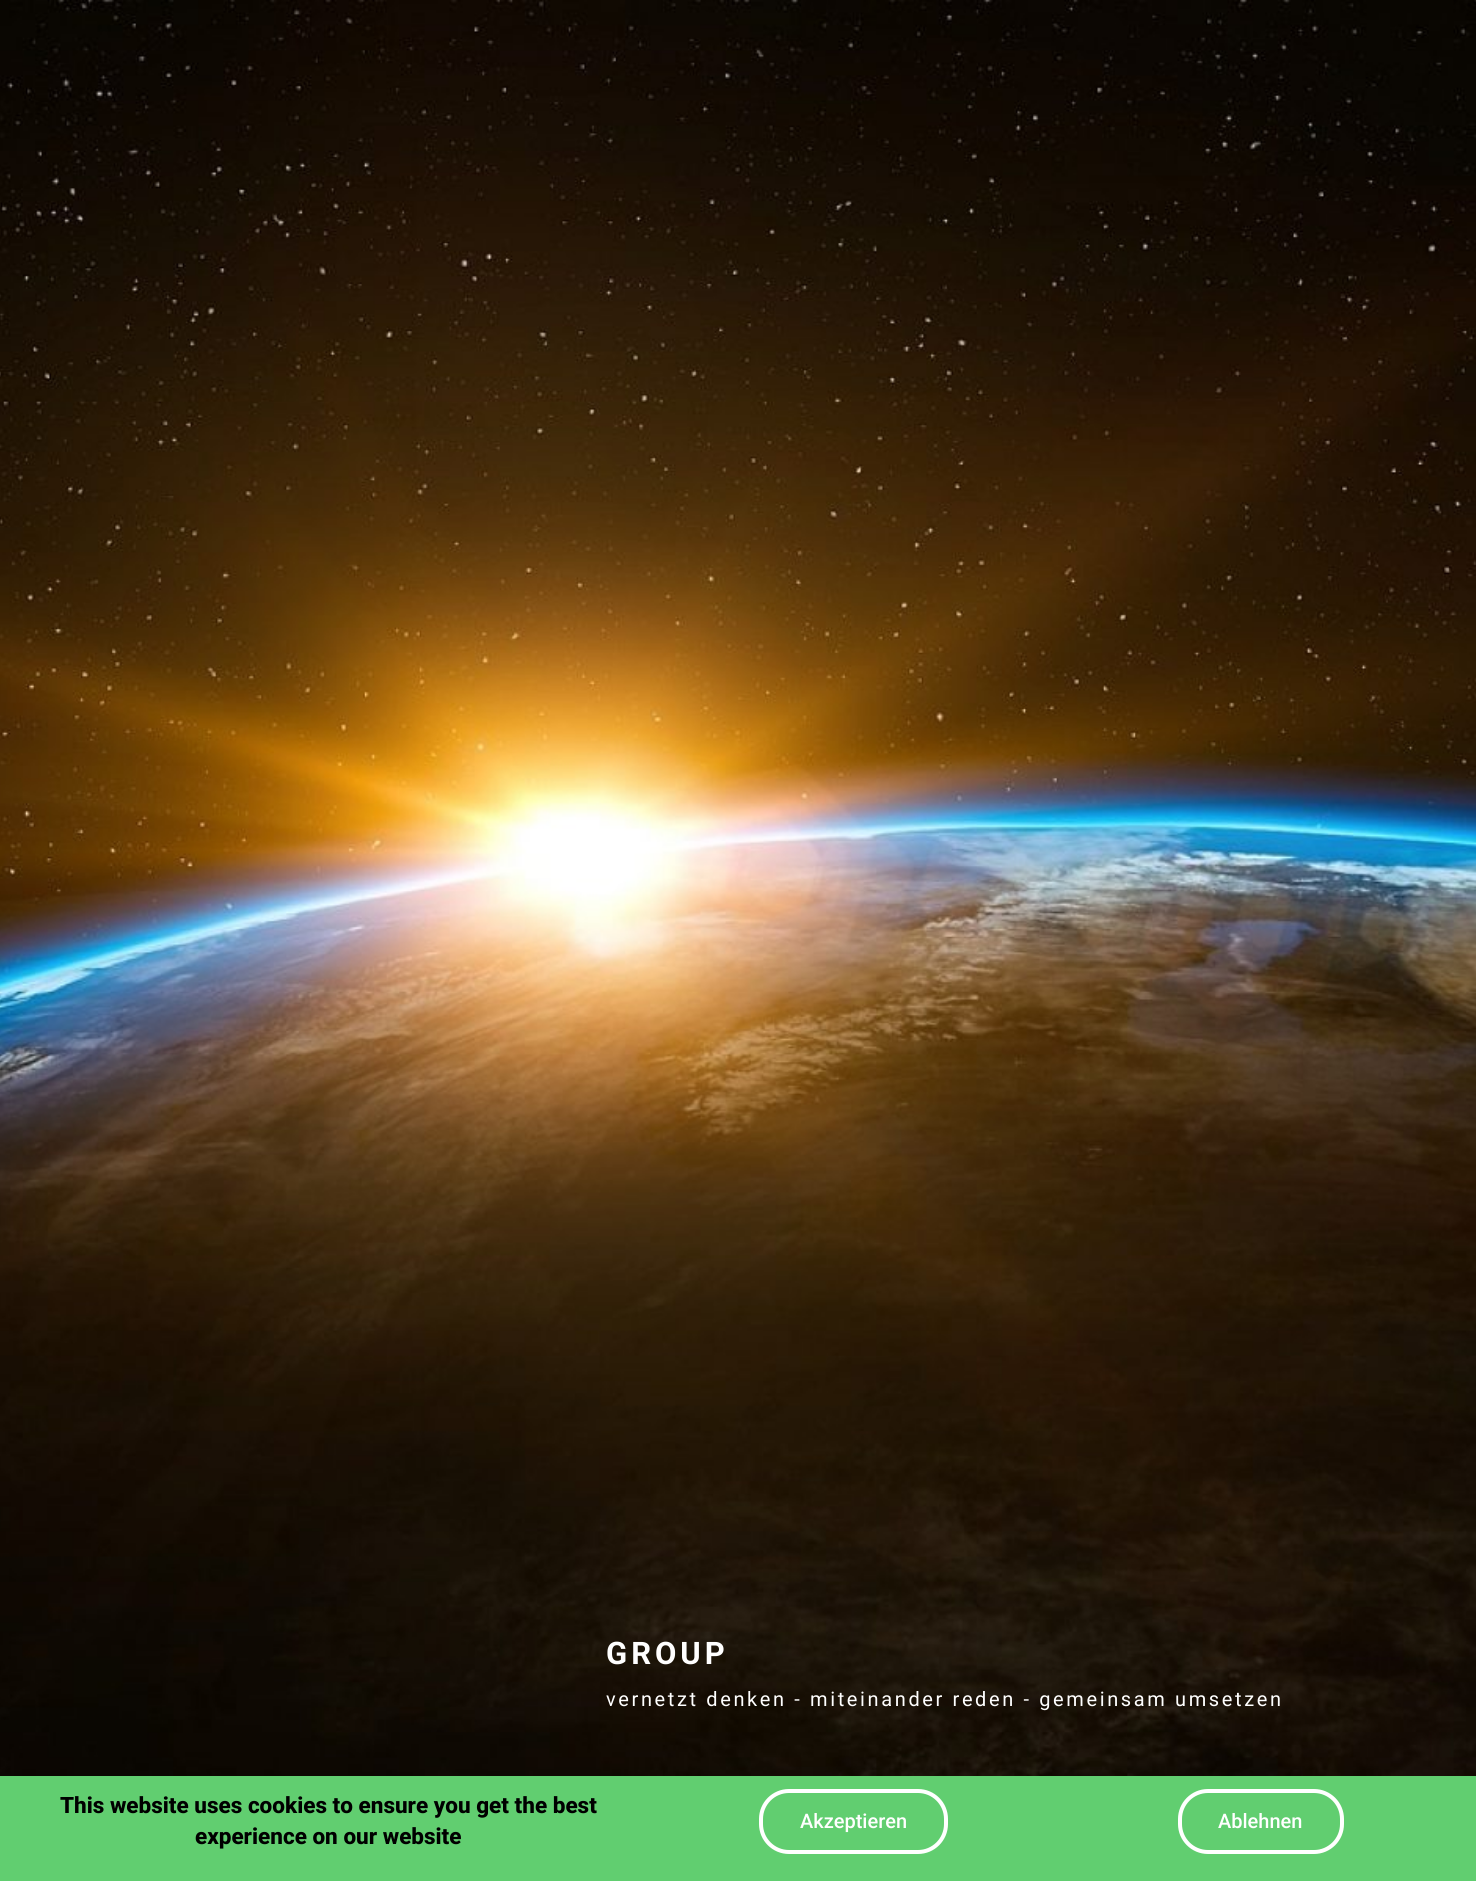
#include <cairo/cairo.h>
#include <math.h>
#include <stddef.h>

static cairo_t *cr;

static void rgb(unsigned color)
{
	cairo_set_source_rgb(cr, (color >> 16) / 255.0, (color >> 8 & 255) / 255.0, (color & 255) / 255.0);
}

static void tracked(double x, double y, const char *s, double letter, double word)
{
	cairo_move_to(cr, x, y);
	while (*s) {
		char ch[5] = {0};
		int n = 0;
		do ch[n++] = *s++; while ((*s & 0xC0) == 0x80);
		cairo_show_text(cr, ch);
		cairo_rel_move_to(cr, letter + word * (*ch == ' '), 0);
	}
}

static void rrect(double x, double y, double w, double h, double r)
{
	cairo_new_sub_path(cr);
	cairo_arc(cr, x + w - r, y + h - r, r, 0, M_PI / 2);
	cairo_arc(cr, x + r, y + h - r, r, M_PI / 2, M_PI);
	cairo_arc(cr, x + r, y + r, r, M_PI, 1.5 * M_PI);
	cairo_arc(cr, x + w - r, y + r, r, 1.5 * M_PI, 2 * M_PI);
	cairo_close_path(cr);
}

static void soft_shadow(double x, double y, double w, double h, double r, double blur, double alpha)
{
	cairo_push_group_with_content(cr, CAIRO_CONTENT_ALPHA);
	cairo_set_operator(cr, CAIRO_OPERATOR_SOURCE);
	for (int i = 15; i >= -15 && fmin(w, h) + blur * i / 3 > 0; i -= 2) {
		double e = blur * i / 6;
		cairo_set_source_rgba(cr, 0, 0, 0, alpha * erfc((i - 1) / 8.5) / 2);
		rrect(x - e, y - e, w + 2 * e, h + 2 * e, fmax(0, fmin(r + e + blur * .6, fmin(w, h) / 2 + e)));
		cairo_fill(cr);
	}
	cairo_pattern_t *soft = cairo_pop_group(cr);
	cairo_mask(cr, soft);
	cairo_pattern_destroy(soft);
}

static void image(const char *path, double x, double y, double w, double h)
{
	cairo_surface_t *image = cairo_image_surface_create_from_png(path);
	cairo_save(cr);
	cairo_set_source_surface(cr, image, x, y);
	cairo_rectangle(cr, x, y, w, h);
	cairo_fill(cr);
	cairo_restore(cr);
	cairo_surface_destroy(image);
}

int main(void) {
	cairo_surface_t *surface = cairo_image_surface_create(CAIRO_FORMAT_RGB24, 1476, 1881);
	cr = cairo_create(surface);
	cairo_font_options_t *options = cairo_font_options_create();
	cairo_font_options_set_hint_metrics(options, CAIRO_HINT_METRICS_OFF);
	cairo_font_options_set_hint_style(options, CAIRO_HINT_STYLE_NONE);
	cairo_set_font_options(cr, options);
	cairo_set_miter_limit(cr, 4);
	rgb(0xffffff);
	cairo_paint(cr);
	image("img/1.png", 0, 0, 1476, 1776);
	rgb(0x000000);
	soft_shadow(-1, 1783, 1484, 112, 0, 14.5, 0.2);
	rgb(0x61ce70);
	cairo_rectangle(cr, 0, 1776, 1476, 105);
	cairo_fill(cr);
	rrect(761, 1791, 185, 61, 28);
	rgb(0xffffff);
	cairo_set_line_width(cr, 4);
	cairo_stroke(cr);
	rrect(1180, 1791, 162, 61, 28);
	cairo_stroke(cr);
	cairo_select_font_face(cr, "Roboto", CAIRO_FONT_SLANT_NORMAL, CAIRO_FONT_WEIGHT_BOLD);
	cairo_set_font_size(cr, 31);
	tracked(606, 1664, "GROUP", 4, 0);
	cairo_select_font_face(cr, "Roboto", CAIRO_FONT_SLANT_NORMAL, CAIRO_FONT_WEIGHT_NORMAL);
	cairo_set_font_size(cr, 20);
	tracked(606, 1706, "vernetzt denken - miteinander reden - gemeinsam umsetzen", 2.62, 0);
	cairo_select_font_face(cr, "Roboto ExtraBold", CAIRO_FONT_SLANT_NORMAL, CAIRO_FONT_WEIGHT_NORMAL);
	cairo_set_font_size(cr, 22.5);
	rgb(0x000000);
	cairo_move_to(cr, 60, 1813);
	cairo_show_text(cr, "This website uses cookies to ensure you get the best");
	cairo_move_to(cr, 195, 1844);
	cairo_show_text(cr, "experience on our website");
	cairo_select_font_face(cr, "Roboto Medium", CAIRO_FONT_SLANT_NORMAL, CAIRO_FONT_WEIGHT_NORMAL);
	cairo_set_font_size(cr, 20);
	rgb(0xffffff);
	cairo_move_to(cr, 800, 1828);
	cairo_show_text(cr, "Akzeptieren");
	cairo_move_to(cr, 1218, 1828);
	cairo_show_text(cr, "Ablehnen");
	cairo_surface_write_to_png(surface, "page.png");
	cairo_font_options_destroy(options);
	cairo_destroy(cr);
	cairo_surface_destroy(surface);
	return 0;
}
